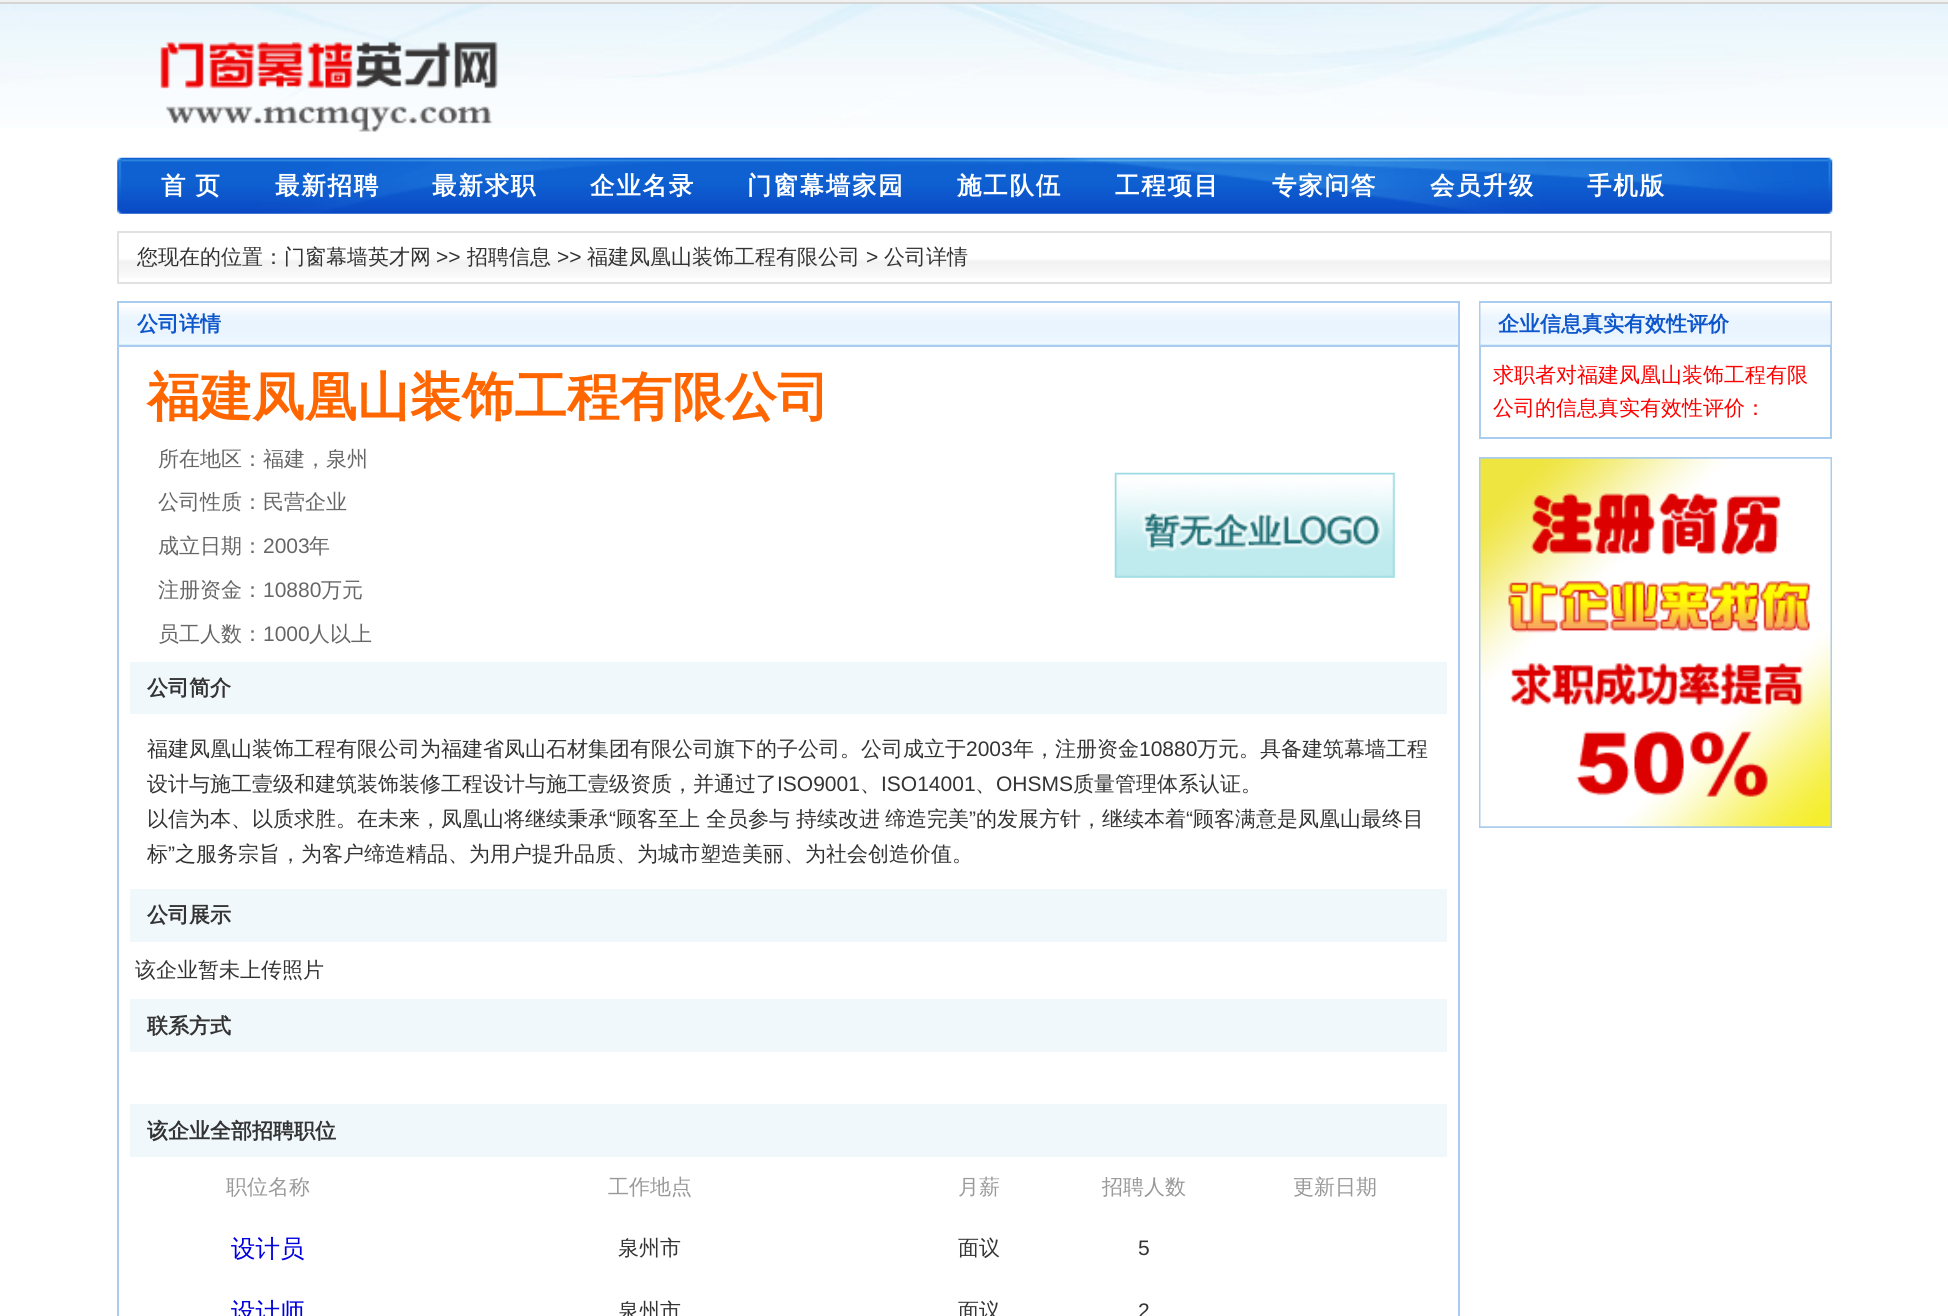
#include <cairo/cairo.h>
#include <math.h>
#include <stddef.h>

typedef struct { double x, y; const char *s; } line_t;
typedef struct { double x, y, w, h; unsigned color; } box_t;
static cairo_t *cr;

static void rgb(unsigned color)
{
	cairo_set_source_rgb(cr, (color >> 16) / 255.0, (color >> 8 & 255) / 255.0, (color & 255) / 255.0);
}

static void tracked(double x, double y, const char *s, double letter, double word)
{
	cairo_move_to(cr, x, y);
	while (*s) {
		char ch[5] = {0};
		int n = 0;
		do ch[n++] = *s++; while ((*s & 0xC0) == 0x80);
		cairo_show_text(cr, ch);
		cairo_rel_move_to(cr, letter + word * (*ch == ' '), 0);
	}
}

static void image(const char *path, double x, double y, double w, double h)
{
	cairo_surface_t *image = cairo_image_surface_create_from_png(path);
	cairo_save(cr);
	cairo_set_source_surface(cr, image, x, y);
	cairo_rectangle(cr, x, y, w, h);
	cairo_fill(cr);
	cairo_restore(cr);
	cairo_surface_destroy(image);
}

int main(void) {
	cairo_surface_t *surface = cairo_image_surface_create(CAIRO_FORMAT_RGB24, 1948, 1316);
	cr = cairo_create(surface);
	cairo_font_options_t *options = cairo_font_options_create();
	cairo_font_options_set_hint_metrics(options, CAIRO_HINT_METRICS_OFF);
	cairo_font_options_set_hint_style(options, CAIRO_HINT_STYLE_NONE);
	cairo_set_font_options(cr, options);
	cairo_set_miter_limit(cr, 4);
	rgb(0xffffff);
	cairo_paint(cr);
	image("img/1.png", 0, 4, 1948, 124);
	rgb(0xf1f1f1);
	cairo_rectangle(cr, 0, 0, 1948, 2);
	cairo_fill(cr);
	rgb(0xd5d5d5);
	cairo_rectangle(cr, 0, 2, 1948, 2);
	cairo_fill(cr);
	image("img/2.png", 160, 41, 338, 91);
	image("img/3.png", 117, 157, 1716, 57);
	image("img/4.png", 119, 259, 1711, 19);
	cairo_rectangle(cr, 118, 232, 1713, 51);
	rgb(0xe1e1e1);
	cairo_stroke(cr);
	cairo_rectangle(cr, 118, 302, 1341, 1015);
	rgb(0xaaccee);
	cairo_stroke(cr);
	image("img/5.png", 119, 307, 1339, 38);
	cairo_rectangle(cr, 119, 345, 1339, 2);
	cairo_fill(cr);
	image("img/6.png", 1114, 472, 281, 106);
	{
		static const box_t items[] = {
			{130, 662, 1317, 52, 0xf1f8fc},
			{130, 889, 1317, 53, 0xf1f8fc},
			{130, 999, 1317, 53, 0xf1f8fc},
			{130, 1104, 1317, 53, 0xf1f8fc},
		};
		for (size_t i = 0; i < sizeof items / sizeof *items; i++) {
			rgb(items[i].color);
			cairo_rectangle(cr, items[i].x, items[i].y, items[i].w, items[i].h);
			cairo_fill(cr);
		}
	}
	cairo_rectangle(cr, 1480, 302, 351, 136);
	rgb(0xaaccee);
	cairo_stroke(cr);
	image("img/7.png", 1480, 303, 351, 44);
	cairo_rectangle(cr, 1481, 345, 350, 2);
	cairo_fill(cr);
	cairo_rectangle(cr, 1480, 458, 351, 369);
	cairo_stroke(cr);
	image("img/8.png", 1480, 458, 351, 369);
	cairo_select_font_face(cr, "WenQuanYi Zen Hei", CAIRO_FONT_SLANT_NORMAL, CAIRO_FONT_WEIGHT_BOLD);
	cairo_set_font_size(cr, 24.5);
	rgb(0xffffff);
	tracked(161, 194, "首 页", 1.75, -1);
	{
		static const line_t items[] = {
			{275, 194, "最新招聘"},
			{432, 194, "最新求职"},
			{590, 194, "企业名录"},
			{747, 194, "门窗幕墙家园"},
			{957, 194, "施工队伍"},
			{1115, 194, "工程项目"},
			{1272, 194, "专家问答"},
			{1430, 194, "会员升级"},
			{1587, 194, "手机版"},
		};
		for (size_t i = 0; i < sizeof items / sizeof *items; i++) {
			tracked(items[i].x, items[i].y, items[i].s, 1.75, 0);
		}
	}
	cairo_select_font_face(cr, "WenQuanYi Zen Hei Medium", CAIRO_FONT_SLANT_NORMAL, CAIRO_FONT_WEIGHT_NORMAL);
	cairo_set_font_size(cr, 21);
	rgb(0x333333);
	cairo_move_to(cr, 137, 264);
	cairo_show_text(cr, "您现在的位置：门窗幕墙英才网");
	cairo_select_font_face(cr, "Liberation Sans", CAIRO_FONT_SLANT_NORMAL, CAIRO_FONT_WEIGHT_NORMAL);
	cairo_move_to(cr, 436, 264);
	cairo_show_text(cr, ">>");
	cairo_select_font_face(cr, "WenQuanYi Zen Hei Medium", CAIRO_FONT_SLANT_NORMAL, CAIRO_FONT_WEIGHT_NORMAL);
	cairo_move_to(cr, 467, 264);
	cairo_show_text(cr, "招聘信息");
	cairo_select_font_face(cr, "Liberation Sans", CAIRO_FONT_SLANT_NORMAL, CAIRO_FONT_WEIGHT_NORMAL);
	cairo_move_to(cr, 557, 264);
	cairo_show_text(cr, ">>");
	cairo_select_font_face(cr, "WenQuanYi Zen Hei Medium", CAIRO_FONT_SLANT_NORMAL, CAIRO_FONT_WEIGHT_NORMAL);
	cairo_move_to(cr, 587, 264);
	cairo_show_text(cr, "福建凤凰山装饰工程有限公司");
	cairo_select_font_face(cr, "Liberation Sans", CAIRO_FONT_SLANT_NORMAL, CAIRO_FONT_WEIGHT_NORMAL);
	cairo_move_to(cr, 866, 264);
	cairo_show_text(cr, ">");
	cairo_select_font_face(cr, "WenQuanYi Zen Hei Medium", CAIRO_FONT_SLANT_NORMAL, CAIRO_FONT_WEIGHT_NORMAL);
	cairo_move_to(cr, 884, 264);
	cairo_show_text(cr, "公司详情");
	cairo_select_font_face(cr, "WenQuanYi Zen Hei", CAIRO_FONT_SLANT_NORMAL, CAIRO_FONT_WEIGHT_BOLD);
	rgb(0x0d56cc);
	cairo_move_to(cr, 137, 331);
	cairo_show_text(cr, "公司详情");
	cairo_set_font_size(cr, 52.5);
	rgb(0xff6600);
	cairo_move_to(cr, 147, 415);
	cairo_show_text(cr, "福建凤凰山装饰工程有限公司");
	cairo_select_font_face(cr, "WenQuanYi Zen Hei Medium", CAIRO_FONT_SLANT_NORMAL, CAIRO_FONT_WEIGHT_NORMAL);
	cairo_set_font_size(cr, 21);
	rgb(0x666666);
	{
		static const line_t items[] = {
			{158, 466, "所在地区：福建，泉州"},
			{158, 509, "公司性质：民营企业"},
			{158, 553, "成立日期："},
		};
		for (size_t i = 0; i < sizeof items / sizeof *items; i++) {
			cairo_move_to(cr, items[i].x, items[i].y);
			cairo_show_text(cr, items[i].s);
		}
	}
	cairo_select_font_face(cr, "Liberation Sans", CAIRO_FONT_SLANT_NORMAL, CAIRO_FONT_WEIGHT_NORMAL);
	cairo_move_to(cr, 263, 553);
	cairo_show_text(cr, "2003");
	cairo_select_font_face(cr, "WenQuanYi Zen Hei Medium", CAIRO_FONT_SLANT_NORMAL, CAIRO_FONT_WEIGHT_NORMAL);
	cairo_move_to(cr, 309, 553);
	cairo_show_text(cr, "年");
	cairo_move_to(cr, 158, 597);
	cairo_show_text(cr, "注册资金：");
	cairo_select_font_face(cr, "Liberation Sans", CAIRO_FONT_SLANT_NORMAL, CAIRO_FONT_WEIGHT_NORMAL);
	cairo_move_to(cr, 263, 597);
	cairo_show_text(cr, "10880");
	cairo_select_font_face(cr, "WenQuanYi Zen Hei Medium", CAIRO_FONT_SLANT_NORMAL, CAIRO_FONT_WEIGHT_NORMAL);
	cairo_move_to(cr, 321, 597);
	cairo_show_text(cr, "万元");
	cairo_move_to(cr, 158, 641);
	cairo_show_text(cr, "员工人数：");
	cairo_select_font_face(cr, "Liberation Sans", CAIRO_FONT_SLANT_NORMAL, CAIRO_FONT_WEIGHT_NORMAL);
	cairo_move_to(cr, 263, 641);
	cairo_show_text(cr, "1000");
	cairo_select_font_face(cr, "WenQuanYi Zen Hei Medium", CAIRO_FONT_SLANT_NORMAL, CAIRO_FONT_WEIGHT_NORMAL);
	cairo_move_to(cr, 309, 641);
	cairo_show_text(cr, "人以上");
	cairo_select_font_face(cr, "WenQuanYi Zen Hei", CAIRO_FONT_SLANT_NORMAL, CAIRO_FONT_WEIGHT_BOLD);
	rgb(0x333333);
	cairo_move_to(cr, 147, 695);
	cairo_show_text(cr, "公司简介");
	cairo_select_font_face(cr, "WenQuanYi Zen Hei Medium", CAIRO_FONT_SLANT_NORMAL, CAIRO_FONT_WEIGHT_NORMAL);
	cairo_move_to(cr, 147, 756);
	cairo_show_text(cr, "福建凤凰山装饰工程有限公司为福建省凤山石材集团有限公司旗下的子公司。公司成立于");
	cairo_select_font_face(cr, "Liberation Sans", CAIRO_FONT_SLANT_NORMAL, CAIRO_FONT_WEIGHT_NORMAL);
	cairo_move_to(cr, 966, 756);
	cairo_show_text(cr, "2003");
	cairo_select_font_face(cr, "WenQuanYi Zen Hei Medium", CAIRO_FONT_SLANT_NORMAL, CAIRO_FONT_WEIGHT_NORMAL);
	cairo_move_to(cr, 1013, 756);
	cairo_show_text(cr, "年，注册资金");
	cairo_select_font_face(cr, "Liberation Sans", CAIRO_FONT_SLANT_NORMAL, CAIRO_FONT_WEIGHT_NORMAL);
	cairo_move_to(cr, 1139, 756);
	cairo_show_text(cr, "10880");
	cairo_select_font_face(cr, "WenQuanYi Zen Hei Medium", CAIRO_FONT_SLANT_NORMAL, CAIRO_FONT_WEIGHT_NORMAL);
	cairo_move_to(cr, 1197, 756);
	cairo_show_text(cr, "万元。具备建筑幕墙工程");
	cairo_move_to(cr, 147, 791);
	cairo_show_text(cr, "设计与施工壹级和建筑装饰装修工程设计与施工壹级资质，并通过了");
	cairo_select_font_face(cr, "Liberation Sans", CAIRO_FONT_SLANT_NORMAL, CAIRO_FONT_WEIGHT_NORMAL);
	cairo_move_to(cr, 777, 791);
	cairo_show_text(cr, "ISO9001");
	cairo_select_font_face(cr, "WenQuanYi Zen Hei Medium", CAIRO_FONT_SLANT_NORMAL, CAIRO_FONT_WEIGHT_NORMAL);
	cairo_move_to(cr, 860, 791);
	cairo_show_text(cr, "、");
	cairo_select_font_face(cr, "Liberation Sans", CAIRO_FONT_SLANT_NORMAL, CAIRO_FONT_WEIGHT_NORMAL);
	cairo_move_to(cr, 881, 791);
	cairo_show_text(cr, "ISO14001");
	cairo_select_font_face(cr, "WenQuanYi Zen Hei Medium", CAIRO_FONT_SLANT_NORMAL, CAIRO_FONT_WEIGHT_NORMAL);
	cairo_move_to(cr, 975, 791);
	cairo_show_text(cr, "、");
	cairo_select_font_face(cr, "Liberation Sans", CAIRO_FONT_SLANT_NORMAL, CAIRO_FONT_WEIGHT_NORMAL);
	cairo_move_to(cr, 996, 791);
	cairo_show_text(cr, "OHSMS");
	cairo_select_font_face(cr, "WenQuanYi Zen Hei Medium", CAIRO_FONT_SLANT_NORMAL, CAIRO_FONT_WEIGHT_NORMAL);
	cairo_move_to(cr, 1073, 791);
	cairo_show_text(cr, "质量管理体系认证。");
	cairo_move_to(cr, 147, 826);
	cairo_show_text(cr, "以信为本、以质求胜。在未来，凤凰山将继续秉承");
	cairo_select_font_face(cr, "Liberation Sans", CAIRO_FONT_SLANT_NORMAL, CAIRO_FONT_WEIGHT_NORMAL);
	cairo_move_to(cr, 609, 826);
	cairo_show_text(cr, "“");
	cairo_select_font_face(cr, "WenQuanYi Zen Hei Medium", CAIRO_FONT_SLANT_NORMAL, CAIRO_FONT_WEIGHT_NORMAL);
	{
		static const line_t items[] = {
			{616, 826, "顾客至上"},
			{706, 826, "全员参与"},
			{796, 826, "持续改进"},
			{885, 826, "缔造完美"},
		};
		for (size_t i = 0; i < sizeof items / sizeof *items; i++) {
			cairo_move_to(cr, items[i].x, items[i].y);
			cairo_show_text(cr, items[i].s);
		}
	}
	cairo_select_font_face(cr, "Liberation Sans", CAIRO_FONT_SLANT_NORMAL, CAIRO_FONT_WEIGHT_NORMAL);
	cairo_move_to(cr, 969, 826);
	cairo_show_text(cr, "”");
	cairo_select_font_face(cr, "WenQuanYi Zen Hei Medium", CAIRO_FONT_SLANT_NORMAL, CAIRO_FONT_WEIGHT_NORMAL);
	cairo_move_to(cr, 976, 826);
	cairo_show_text(cr, "的发展方针，继续本着");
	cairo_select_font_face(cr, "Liberation Sans", CAIRO_FONT_SLANT_NORMAL, CAIRO_FONT_WEIGHT_NORMAL);
	cairo_move_to(cr, 1186, 826);
	cairo_show_text(cr, "“");
	cairo_select_font_face(cr, "WenQuanYi Zen Hei Medium", CAIRO_FONT_SLANT_NORMAL, CAIRO_FONT_WEIGHT_NORMAL);
	cairo_move_to(cr, 1193, 826);
	cairo_show_text(cr, "顾客满意是凤凰山最终目");
	cairo_move_to(cr, 147, 861);
	cairo_show_text(cr, "标");
	cairo_select_font_face(cr, "Liberation Sans", CAIRO_FONT_SLANT_NORMAL, CAIRO_FONT_WEIGHT_NORMAL);
	cairo_move_to(cr, 168, 861);
	cairo_show_text(cr, "”");
	cairo_select_font_face(cr, "WenQuanYi Zen Hei Medium", CAIRO_FONT_SLANT_NORMAL, CAIRO_FONT_WEIGHT_NORMAL);
	cairo_move_to(cr, 175, 861);
	cairo_show_text(cr, "之服务宗旨，为客户缔造精品、为用户提升品质、为城市塑造美丽、为社会创造价值。");
	cairo_select_font_face(cr, "WenQuanYi Zen Hei", CAIRO_FONT_SLANT_NORMAL, CAIRO_FONT_WEIGHT_BOLD);
	cairo_move_to(cr, 147, 922);
	cairo_show_text(cr, "公司展示");
	cairo_select_font_face(cr, "WenQuanYi Zen Hei Medium", CAIRO_FONT_SLANT_NORMAL, CAIRO_FONT_WEIGHT_NORMAL);
	cairo_move_to(cr, 135, 977);
	cairo_show_text(cr, "该企业暂未上传照片");
	cairo_select_font_face(cr, "WenQuanYi Zen Hei", CAIRO_FONT_SLANT_NORMAL, CAIRO_FONT_WEIGHT_BOLD);
	cairo_move_to(cr, 147, 1033);
	cairo_show_text(cr, "联系方式");
	cairo_move_to(cr, 147, 1138);
	cairo_show_text(cr, "该企业全部招聘职位");
	cairo_select_font_face(cr, "WenQuanYi Zen Hei Medium", CAIRO_FONT_SLANT_NORMAL, CAIRO_FONT_WEIGHT_NORMAL);
	rgb(0x999999);
	{
		static const line_t items[] = {
			{226, 1194, "职位名称"},
			{608, 1194, "工作地点"},
			{958, 1194, "月薪"},
			{1102, 1194, "招聘人数"},
			{1293, 1194, "更新日期"},
		};
		for (size_t i = 0; i < sizeof items / sizeof *items; i++) {
			cairo_move_to(cr, items[i].x, items[i].y);
			cairo_show_text(cr, items[i].s);
		}
	}
	cairo_set_font_size(cr, 24.5);
	rgb(0x0000dd);
	cairo_move_to(cr, 231, 1257);
	cairo_show_text(cr, "设计员");
	cairo_set_font_size(cr, 21);
	rgb(0x333333);
	cairo_move_to(cr, 618, 1255);
	cairo_show_text(cr, "泉州市");
	cairo_move_to(cr, 958, 1255);
	cairo_show_text(cr, "面议");
	cairo_select_font_face(cr, "Liberation Sans", CAIRO_FONT_SLANT_NORMAL, CAIRO_FONT_WEIGHT_NORMAL);
	cairo_move_to(cr, 1138, 1255);
	cairo_show_text(cr, "5");
	cairo_select_font_face(cr, "WenQuanYi Zen Hei Medium", CAIRO_FONT_SLANT_NORMAL, CAIRO_FONT_WEIGHT_NORMAL);
	cairo_set_font_size(cr, 24.5);
	rgb(0x0000dd);
	cairo_move_to(cr, 231, 1320);
	cairo_show_text(cr, "设计师");
	cairo_set_font_size(cr, 21);
	rgb(0x333333);
	cairo_move_to(cr, 618, 1318);
	cairo_show_text(cr, "泉州市");
	cairo_move_to(cr, 958, 1318);
	cairo_show_text(cr, "面议");
	cairo_select_font_face(cr, "Liberation Sans", CAIRO_FONT_SLANT_NORMAL, CAIRO_FONT_WEIGHT_NORMAL);
	cairo_move_to(cr, 1138, 1318);
	cairo_show_text(cr, "2");
	cairo_select_font_face(cr, "WenQuanYi Zen Hei", CAIRO_FONT_SLANT_NORMAL, CAIRO_FONT_WEIGHT_BOLD);
	rgb(0x0d56cc);
	cairo_move_to(cr, 1498, 331);
	cairo_show_text(cr, "企业信息真实有效性评价");
	cairo_select_font_face(cr, "WenQuanYi Zen Hei Medium", CAIRO_FONT_SLANT_NORMAL, CAIRO_FONT_WEIGHT_NORMAL);
	rgb(0xff0000);
	cairo_move_to(cr, 1493, 382);
	cairo_show_text(cr, "求职者对福建凤凰山装饰工程有限");
	cairo_move_to(cr, 1493, 415);
	cairo_show_text(cr, "公司的信息真实有效性评价：");
	cairo_surface_write_to_png(surface, "page.png");
	cairo_font_options_destroy(options);
	cairo_destroy(cr);
	cairo_surface_destroy(surface);
	return 0;
}
